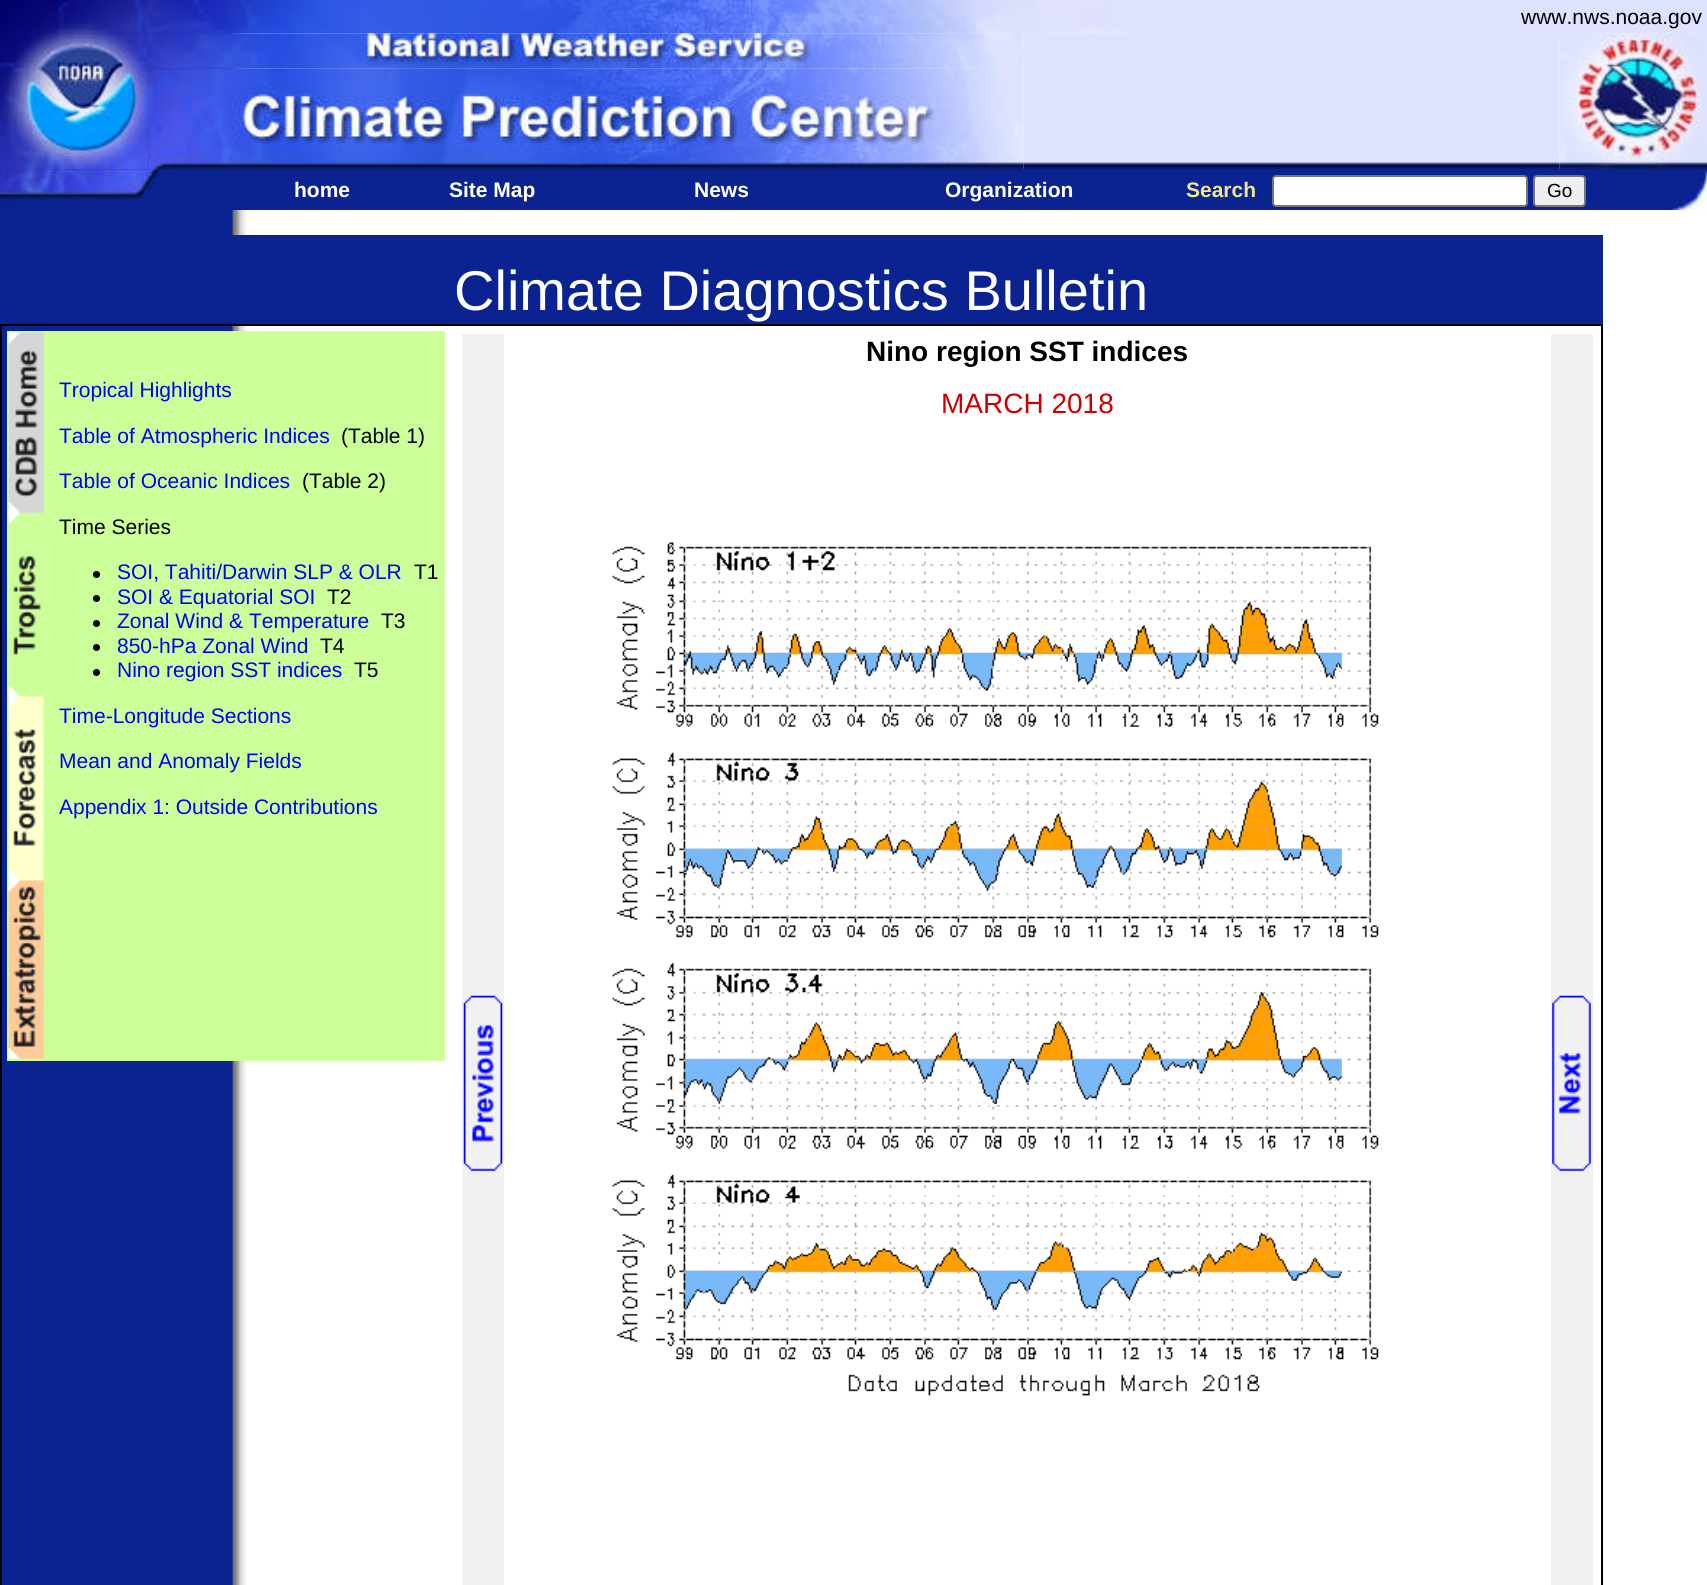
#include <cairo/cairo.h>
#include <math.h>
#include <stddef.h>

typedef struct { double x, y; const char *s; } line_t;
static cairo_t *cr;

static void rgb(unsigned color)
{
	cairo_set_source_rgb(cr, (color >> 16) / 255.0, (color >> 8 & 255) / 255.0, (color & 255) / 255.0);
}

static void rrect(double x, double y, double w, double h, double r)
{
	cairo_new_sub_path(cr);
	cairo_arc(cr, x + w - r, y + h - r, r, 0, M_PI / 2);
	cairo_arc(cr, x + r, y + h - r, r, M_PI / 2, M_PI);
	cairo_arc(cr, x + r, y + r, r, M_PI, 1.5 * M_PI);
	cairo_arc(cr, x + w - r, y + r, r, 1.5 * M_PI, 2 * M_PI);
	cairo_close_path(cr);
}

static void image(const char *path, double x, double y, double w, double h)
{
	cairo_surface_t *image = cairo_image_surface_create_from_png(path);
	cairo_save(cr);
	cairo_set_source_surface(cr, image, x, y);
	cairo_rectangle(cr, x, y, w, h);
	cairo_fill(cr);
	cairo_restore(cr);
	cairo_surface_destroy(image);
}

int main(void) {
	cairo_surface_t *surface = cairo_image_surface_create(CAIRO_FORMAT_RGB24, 1707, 1585);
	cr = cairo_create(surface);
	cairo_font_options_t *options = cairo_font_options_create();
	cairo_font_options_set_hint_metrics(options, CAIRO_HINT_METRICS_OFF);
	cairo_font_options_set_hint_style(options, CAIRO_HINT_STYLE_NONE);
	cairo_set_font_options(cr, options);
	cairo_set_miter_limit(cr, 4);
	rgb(0xffffff);
	cairo_paint(cr);
	image("img/1.png", 0, 33, 247, 1552);
	image("img/2.png", 0, 0, 1707, 34);
	image("img/3.png", 0, 33, 149, 137);
	image("img/5.png", 1023, 33, 537, 136);
	image("img/4.png", 148, 33, 876, 36);
	rgb(0x0a2390);
	cairo_rectangle(cr, 232, 169, 1475, 41);
	cairo_fill(cr);
	image("img/6.png", 1559, 33, 148, 137);
	image("img/7.png", 148, 68, 876, 102);
	image("img/8.png", 0, 169, 164, 39);
	rgb(0xffffff);
	rrect(1273, 176, 254, 30, 3);
	cairo_fill_preserve(cr);
	rgb(0x767676);
	cairo_stroke(cr);
	rgb(0xefefef);
	rrect(1534, 176, 51, 30, 3);
	cairo_fill_preserve(cr);
	rgb(0x767676);
	cairo_stroke(cr);
	image("img/9.png", 1666, 169, 41, 41);
	rgb(0x0a2390);
	cairo_rectangle(cr, 232, 235, 1371, 89);
	cairo_fill(cr);
	cairo_rectangle(cr, 1, 325, 1601, 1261);
	rgb(0x000000);
	cairo_stroke(cr);
	rgb(0xccff99);
	cairo_rectangle(cr, 7, 331, 438, 730);
	cairo_fill(cr);
	image("img/10.png", 8, 332, 36, 727);
	rgb(0x000000);
	cairo_arc(cr, 96.5, 574.5, 3.5, 0, 2 * M_PI);
	cairo_fill(cr);
	cairo_arc(cr, 96.5, 598.5, 3.5, 0, 2 * M_PI);
	cairo_fill(cr);
	cairo_arc(cr, 96.5, 623.5, 3.5, 0, 2 * M_PI);
	cairo_fill(cr);
	cairo_arc(cr, 96.5, 647.5, 3.5, 0, 2 * M_PI);
	cairo_fill(cr);
	cairo_arc(cr, 96.5, 672.5, 3.5, 0, 2 * M_PI);
	cairo_fill(cr);
	rgb(0xf1f1f1);
	cairo_rectangle(cr, 462, 334, 42, 1251);
	cairo_fill(cr);
	image("img/11.png", 463, 995, 40, 176);
	image("img/12.png", 612, 542, 767, 854);
	cairo_rectangle(cr, 1551, 334, 42, 1251);
	cairo_fill(cr);
	image("img/13.png", 1552, 995, 39, 176);
	cairo_select_font_face(cr, "Liberation Sans", CAIRO_FONT_SLANT_NORMAL, CAIRO_FONT_WEIGHT_NORMAL);
	cairo_set_font_size(cr, 21);
	rgb(0x000000);
	cairo_move_to(cr, 1521, 24);
	cairo_show_text(cr, "www.nws.noaa.gov");
	cairo_select_font_face(cr, "Liberation Sans", CAIRO_FONT_SLANT_NORMAL, CAIRO_FONT_WEIGHT_BOLD);
	rgb(0xffffff);
	{
		static const line_t items[] = {
			{294, 197, "home"},
			{449, 197, "Site Map"},
			{694, 197, "News"},
			{945, 197, "Organization"},
		};
		for (size_t i = 0; i < sizeof items / sizeof *items; i++) {
			cairo_move_to(cr, items[i].x, items[i].y);
			cairo_show_text(cr, items[i].s);
		}
	}
	rgb(0xf0e68c);
	cairo_move_to(cr, 1186, 197);
	cairo_show_text(cr, "Search");
	cairo_select_font_face(cr, "Liberation Sans", CAIRO_FONT_SLANT_NORMAL, CAIRO_FONT_WEIGHT_NORMAL);
	cairo_set_font_size(cr, 19);
	rgb(0x000000);
	cairo_move_to(cr, 1547, 197);
	cairo_show_text(cr, "Go");
	cairo_set_font_size(cr, 56);
	rgb(0xffffff);
	cairo_move_to(cr, 454, 310);
	cairo_show_text(cr, "Climate Diagnostics Bulletin");
	cairo_set_font_size(cr, 21);
	rgb(0x0000ff);
	cairo_move_to(cr, 59, 397);
	cairo_show_text(cr, "Tropical Highlights");
	cairo_move_to(cr, 59, 443);
	cairo_show_text(cr, "Table of Atmospheric Indices");
	rgb(0x000000);
	cairo_move_to(cr, 341, 443);
	cairo_show_text(cr, "(Table 1)");
	rgb(0x0000ff);
	cairo_move_to(cr, 59, 488);
	cairo_show_text(cr, "Table of Oceanic Indices");
	rgb(0x000000);
	cairo_move_to(cr, 302, 488);
	cairo_show_text(cr, "(Table 2)");
	cairo_move_to(cr, 59, 534);
	cairo_show_text(cr, "Time Series");
	rgb(0x0000ff);
	cairo_move_to(cr, 117, 579);
	cairo_show_text(cr, "SOI, Tahiti/Darwin SLP & OLR");
	rgb(0x000000);
	cairo_move_to(cr, 414, 579);
	cairo_show_text(cr, "T1");
	rgb(0x0000ff);
	cairo_move_to(cr, 117, 604);
	cairo_show_text(cr, "SOI & Equatorial SOI");
	rgb(0x000000);
	cairo_move_to(cr, 327, 604);
	cairo_show_text(cr, "T2");
	rgb(0x0000ff);
	cairo_move_to(cr, 117, 628);
	cairo_show_text(cr, "Zonal Wind & Temperature");
	rgb(0x000000);
	cairo_move_to(cr, 381, 628);
	cairo_show_text(cr, "T3");
	rgb(0x0000ff);
	cairo_move_to(cr, 117, 653);
	cairo_show_text(cr, "850-hPa Zonal Wind");
	rgb(0x000000);
	cairo_move_to(cr, 320, 653);
	cairo_show_text(cr, "T4");
	rgb(0x0000ff);
	cairo_move_to(cr, 117, 677);
	cairo_show_text(cr, "Nino region SST indices");
	rgb(0x000000);
	cairo_move_to(cr, 354, 677);
	cairo_show_text(cr, "T5");
	rgb(0x0000ff);
	{
		static const line_t items[] = {
			{59, 723, "Time-Longitude Sections"},
			{59, 768, "Mean and Anomaly Fields"},
			{59, 814, "Appendix 1: Outside Contributions"},
		};
		for (size_t i = 0; i < sizeof items / sizeof *items; i++) {
			cairo_move_to(cr, items[i].x, items[i].y);
			cairo_show_text(cr, items[i].s);
		}
	}
	cairo_select_font_face(cr, "Liberation Sans", CAIRO_FONT_SLANT_NORMAL, CAIRO_FONT_WEIGHT_BOLD);
	cairo_set_font_size(cr, 28);
	rgb(0x000000);
	cairo_move_to(cr, 866, 361);
	cairo_show_text(cr, "Nino region SST indices");
	cairo_select_font_face(cr, "Liberation Sans", CAIRO_FONT_SLANT_NORMAL, CAIRO_FONT_WEIGHT_NORMAL);
	rgb(0xcc0000);
	cairo_move_to(cr, 941, 413);
	cairo_show_text(cr, "MARCH 2018");
	cairo_surface_write_to_png(surface, "page.png");
	cairo_font_options_destroy(options);
	cairo_destroy(cr);
	cairo_surface_destroy(surface);
	return 0;
}
